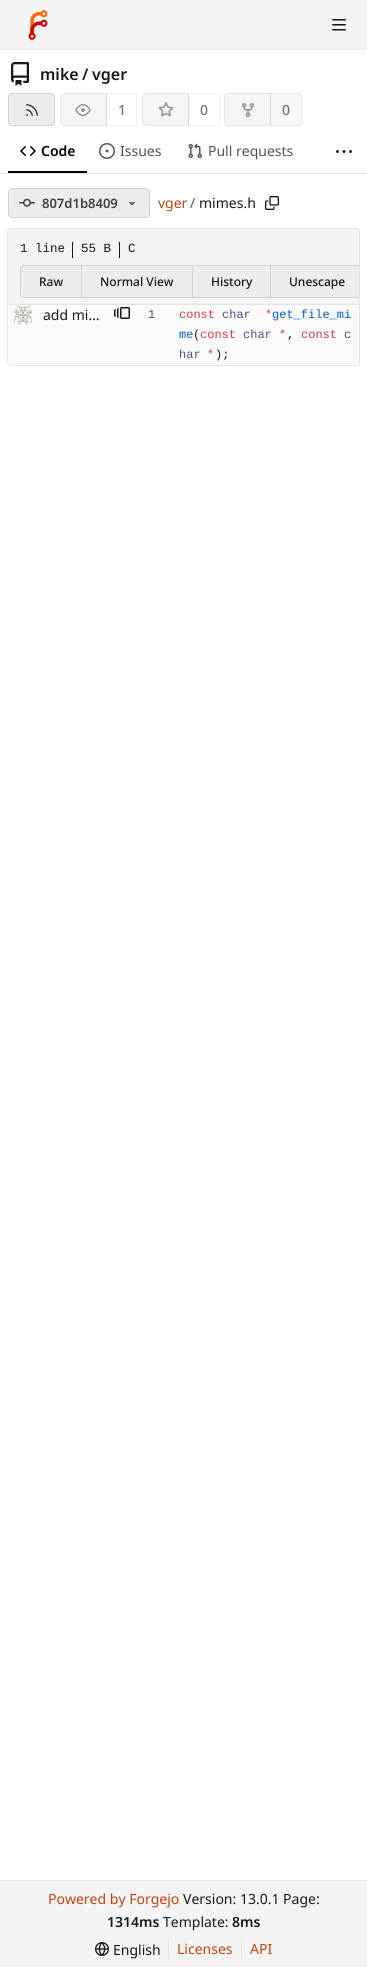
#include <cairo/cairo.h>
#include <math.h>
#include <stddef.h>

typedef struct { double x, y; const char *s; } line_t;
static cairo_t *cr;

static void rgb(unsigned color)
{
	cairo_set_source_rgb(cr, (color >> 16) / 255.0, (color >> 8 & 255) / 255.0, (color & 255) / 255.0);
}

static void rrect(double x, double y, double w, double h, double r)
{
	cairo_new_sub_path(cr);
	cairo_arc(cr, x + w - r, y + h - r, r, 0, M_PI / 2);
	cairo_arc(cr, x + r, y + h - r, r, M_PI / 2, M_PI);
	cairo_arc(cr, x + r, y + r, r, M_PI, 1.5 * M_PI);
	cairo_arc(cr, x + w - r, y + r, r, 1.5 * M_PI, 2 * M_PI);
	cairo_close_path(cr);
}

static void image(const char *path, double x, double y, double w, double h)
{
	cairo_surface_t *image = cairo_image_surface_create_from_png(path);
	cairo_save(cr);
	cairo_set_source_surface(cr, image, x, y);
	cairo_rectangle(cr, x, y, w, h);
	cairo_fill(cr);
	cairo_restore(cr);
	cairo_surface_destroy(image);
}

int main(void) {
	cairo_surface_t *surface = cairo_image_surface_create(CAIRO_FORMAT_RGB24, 367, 1967);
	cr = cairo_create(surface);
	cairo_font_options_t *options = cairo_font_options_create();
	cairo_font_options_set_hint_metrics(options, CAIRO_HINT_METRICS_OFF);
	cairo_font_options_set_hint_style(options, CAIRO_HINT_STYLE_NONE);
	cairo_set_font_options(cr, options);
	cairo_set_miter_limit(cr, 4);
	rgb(0xffffff);
	cairo_paint(cr);
	rgb(0xf4f4f5);
	cairo_rectangle(cr, 0, 0, 367, 49);
	cairo_fill(cr);
	rgb(0xe4e4e7);
	cairo_rectangle(cr, 0, 49, 367, 1);
	cairo_fill(cr);
	image("img/1.png", 28, 10, 20, 30);
	image("img/2.png", 332, 19, 14, 12);
	image("img/3.png", 11, 62, 18, 24);
	rgb(0xececee);
	rrect(8, 93, 47, 33, 4);
	cairo_fill(cr);
	rrect(8.5, 93.5, 46, 32, 3.5);
	cairo_set_source_rgba(cr, 0, 0, 0, 0.11);
	cairo_set_line_width(cr, 1);
	cairo_stroke(cr);
	image("img/4.png", 26, 104, 12, 12);
	rgb(0xf5f5f6);
	cairo_new_path(cr);
	cairo_move_to(cr, 64, 93);
	cairo_line_to(cr, 107, 93);
	cairo_line_to(cr, 107, 126);
	cairo_line_to(cr, 64, 126);
	cairo_curve_to(cr, 62, 126, 60, 124, 60, 122);
	cairo_line_to(cr, 60, 97);
	cairo_curve_to(cr, 60, 95, 62, 93, 64, 93);
	cairo_close_path(cr);
	cairo_fill(cr);
	cairo_new_path(cr);
	cairo_move_to(cr, 64, 93.5);
	cairo_line_to(cr, 106.5, 93.5);
	cairo_line_to(cr, 106.5, 125.5);
	cairo_line_to(cr, 64, 125.5);
	cairo_curve_to(cr, 62, 125.5, 60.5, 124, 60.5, 122);
	cairo_line_to(cr, 60.5, 97);
	cairo_curve_to(cr, 60.5, 95, 62, 93.5, 64, 93.5);
	cairo_close_path(cr);
	cairo_set_source_rgba(cr, 0.451, 0.451, 0.451, 0.11);
	cairo_stroke(cr);
	image("img/5.png", 75, 104, 16, 12);
	cairo_rectangle(cr, 106.5, 93.5, 30, 32);
	cairo_set_source_rgba(cr, 0, 0, 0, 0.06);
	cairo_stroke(cr);
	rgb(0xf5f5f6);
	cairo_new_path(cr);
	cairo_move_to(cr, 146, 93);
	cairo_line_to(cr, 189, 93);
	cairo_line_to(cr, 189, 126);
	cairo_line_to(cr, 146, 126);
	cairo_curve_to(cr, 144, 126, 142, 124, 142, 122);
	cairo_line_to(cr, 142, 97);
	cairo_curve_to(cr, 142, 95, 144, 93, 146, 93);
	cairo_close_path(cr);
	cairo_fill(cr);
	cairo_new_path(cr);
	cairo_move_to(cr, 146, 93.5);
	cairo_line_to(cr, 188.5, 93.5);
	cairo_line_to(cr, 188.5, 125.5);
	cairo_line_to(cr, 146, 125.5);
	cairo_curve_to(cr, 144, 125.5, 142.5, 124, 142.5, 122);
	cairo_line_to(cr, 142.5, 97);
	cairo_curve_to(cr, 142.5, 95, 144, 93.5, 146, 93.5);
	cairo_close_path(cr);
	cairo_set_source_rgba(cr, 0.451, 0.451, 0.451, 0.11);
	cairo_stroke(cr);
	image("img/6.png", 158, 102, 16, 15);
	cairo_rectangle(cr, 188.5, 93.5, 31, 32);
	cairo_set_source_rgba(cr, 0, 0, 0, 0.06);
	cairo_stroke(cr);
	rgb(0xf5f5f6);
	cairo_new_path(cr);
	cairo_move_to(cr, 228, 93);
	cairo_line_to(cr, 271, 93);
	cairo_line_to(cr, 271, 126);
	cairo_line_to(cr, 228, 126);
	cairo_curve_to(cr, 226, 126, 224, 124, 224, 122);
	cairo_line_to(cr, 224, 97);
	cairo_curve_to(cr, 224, 95, 226, 93, 228, 93);
	cairo_close_path(cr);
	cairo_fill(cr);
	cairo_new_path(cr);
	cairo_move_to(cr, 228, 93.5);
	cairo_line_to(cr, 270.5, 93.5);
	cairo_line_to(cr, 270.5, 125.5);
	cairo_line_to(cr, 228, 125.5);
	cairo_curve_to(cr, 226, 125.5, 224.5, 124, 224.5, 122);
	cairo_line_to(cr, 224.5, 97);
	cairo_curve_to(cr, 224.5, 95, 226, 93.5, 228, 93.5);
	cairo_close_path(cr);
	cairo_set_source_rgba(cr, 0.451, 0.451, 0.451, 0.11);
	cairo_stroke(cr);
	image("img/7.png", 242, 103, 12, 14);
	cairo_set_source_rgba(cr, 0.451, 0.451, 0.451, 0.04);
	cairo_rectangle(cr, 270, 93, 32, 33);
	cairo_fill(cr);
	cairo_new_path(cr);
	cairo_move_to(cr, 270.5, 93.5);
	cairo_line_to(cr, 298, 93.5);
	cairo_curve_to(cr, 300, 93.5, 301.5, 95, 301.5, 97);
	cairo_line_to(cr, 301.5, 122);
	cairo_curve_to(cr, 301.5, 124, 300, 125.5, 298, 125.5);
	cairo_line_to(cr, 270.5, 125.5);
	cairo_close_path(cr);
	cairo_set_source_rgba(cr, 0.451, 0.451, 0.451, 0.11);
	cairo_stroke(cr);
	rgb(0x000000);
	cairo_rectangle(cr, 8, 171, 79, 2);
	cairo_fill(cr);
	image("img/8.png", 20, 146, 16, 10);
	image("img/9.png", 99, 143, 16, 16);
	image("img/10.png", 188, 143, 14, 15);
	image("img/11.png", 336, 150, 16, 3);
	rgb(0xe4e4e7);
	cairo_rectangle(cr, 0, 173, 367, 1);
	cairo_fill(cr);
	rgb(0xececee);
	rrect(8, 188, 142, 30, 4);
	cairo_fill(cr);
	rrect(8.5, 188.5, 141, 29, 3.5);
	cairo_set_source_rgba(cr, 0, 0, 0, 0.11);
	cairo_stroke(cr);
	image("img/12.png", 19, 198, 16, 9);
	image("img/13.png", 128, 202, 8, 4);
	image("img/14.png", 265, 196, 14, 14);
	rgb(0xf4f4f5);
	cairo_new_path(cr);
	cairo_move_to(cr, 11, 228.5);
	cairo_line_to(cr, 356, 228.5);
	cairo_curve_to(cr, 358, 228.5, 359.5, 230, 359.5, 232);
	cairo_line_to(cr, 359.5, 304.5);
	cairo_line_to(cr, 7.5, 304.5);
	cairo_line_to(cr, 7.5, 232);
	cairo_curve_to(cr, 7.5, 230, 9, 228.5, 11, 228.5);
	cairo_close_path(cr);
	cairo_fill_preserve(cr);
	rgb(0xe4e4e7);
	cairo_stroke(cr);
	rgb(0x18181b);
	cairo_rectangle(cr, 72, 242, 1, 16);
	cairo_fill(cr);
	cairo_rectangle(cr, 119, 242, 1, 16);
	cairo_fill(cr);
	rgb(0xececee);
	cairo_new_path(cr);
	cairo_move_to(cr, 24, 265);
	cairo_line_to(cr, 81, 265);
	cairo_line_to(cr, 81, 298);
	cairo_line_to(cr, 24, 298);
	cairo_curve_to(cr, 22, 298, 20, 296, 20, 294);
	cairo_line_to(cr, 20, 269);
	cairo_curve_to(cr, 20, 267, 22, 265, 24, 265);
	cairo_close_path(cr);
	cairo_fill(cr);
	cairo_set_source_rgba(cr, 0, 0, 0, 0.11);
	cairo_set_fill_rule(cr, CAIRO_FILL_RULE_EVEN_ODD);
	cairo_new_path(cr);
	cairo_move_to(cr, 24, 265);
	cairo_line_to(cr, 81, 265);
	cairo_line_to(cr, 81, 298);
	cairo_line_to(cr, 24, 298);
	cairo_curve_to(cr, 22, 298, 20, 296, 20, 294);
	cairo_line_to(cr, 20, 269);
	cairo_curve_to(cr, 20, 267, 22, 265, 24, 265);
	cairo_close_path(cr);
	cairo_move_to(cr, 24, 266);
	cairo_line_to(cr, 81, 266);
	cairo_line_to(cr, 81, 297);
	cairo_line_to(cr, 24, 297);
	cairo_curve_to(cr, 22, 297, 21, 296, 21, 294);
	cairo_line_to(cr, 21, 269);
	cairo_curve_to(cr, 21, 267, 22, 266, 24, 266);
	cairo_close_path(cr);
	cairo_fill(cr);
	rgb(0xececee);
	cairo_rectangle(cr, 81, 265, 189, 33);
	cairo_fill(cr);
	rgb(0xd1d1d3);
	cairo_set_fill_rule(cr, CAIRO_FILL_RULE_WINDING);
	cairo_new_path(cr);
	cairo_move_to(cr, 81, 265);
	cairo_line_to(cr, 192, 265);
	cairo_line_to(cr, 192, 266);
	cairo_line_to(cr, 82, 266);
	cairo_close_path(cr);
	cairo_fill(cr);
	cairo_new_path(cr);
	cairo_move_to(cr, 192, 298);
	cairo_line_to(cr, 81, 298);
	cairo_line_to(cr, 82, 297);
	cairo_line_to(cr, 192, 297);
	cairo_close_path(cr);
	cairo_fill(cr);
	cairo_set_source_rgba(cr, 0, 0, 0, 0.11);
	cairo_new_path(cr);
	cairo_move_to(cr, 81, 298);
	cairo_line_to(cr, 81, 265);
	cairo_line_to(cr, 82, 266);
	cairo_line_to(cr, 82, 297);
	cairo_close_path(cr);
	cairo_fill(cr);
	rgb(0xd1d1d3);
	cairo_new_path(cr);
	cairo_move_to(cr, 192, 265);
	cairo_line_to(cr, 270, 265);
	cairo_line_to(cr, 270, 266);
	cairo_line_to(cr, 193, 266);
	cairo_close_path(cr);
	cairo_fill(cr);
	cairo_new_path(cr);
	cairo_move_to(cr, 270, 298);
	cairo_line_to(cr, 192, 298);
	cairo_line_to(cr, 193, 297);
	cairo_line_to(cr, 270, 297);
	cairo_close_path(cr);
	cairo_fill(cr);
	cairo_set_source_rgba(cr, 0, 0, 0, 0.11);
	cairo_new_path(cr);
	cairo_move_to(cr, 192, 298);
	cairo_line_to(cr, 192, 265);
	cairo_line_to(cr, 193, 266);
	cairo_line_to(cr, 193, 297);
	cairo_close_path(cr);
	cairo_fill(cr);
	rgb(0xececee);
	cairo_rectangle(cr, 271, 266, 88, 31);
	cairo_fill(cr);
	rgb(0xd1d1d3);
	cairo_new_path(cr);
	cairo_move_to(cr, 270, 265);
	cairo_line_to(cr, 270, 298);
	cairo_line_to(cr, 359, 298);
	cairo_line_to(cr, 359, 297);
	cairo_line_to(cr, 271, 297);
	cairo_line_to(cr, 271, 266);
	cairo_line_to(cr, 359, 266);
	cairo_line_to(cr, 359, 265);
	cairo_close_path(cr);
	cairo_fill(cr);
	rgb(0xfafafa);
	cairo_new_path(cr);
	cairo_move_to(cr, 7, 305);
	cairo_line_to(cr, 360, 305);
	cairo_line_to(cr, 360, 362);
	cairo_curve_to(cr, 360, 364, 358, 366, 356, 366);
	cairo_line_to(cr, 11, 366);
	cairo_curve_to(cr, 9, 366, 7, 364, 7, 362);
	cairo_close_path(cr);
	cairo_fill(cr);
	rgb(0xe4e4e7);
	cairo_set_fill_rule(cr, CAIRO_FILL_RULE_EVEN_ODD);
	cairo_new_path(cr);
	cairo_move_to(cr, 7, 305);
	cairo_line_to(cr, 360, 305);
	cairo_line_to(cr, 360, 362);
	cairo_curve_to(cr, 360, 364, 358, 366, 356, 366);
	cairo_line_to(cr, 11, 366);
	cairo_curve_to(cr, 9, 366, 7, 364, 7, 362);
	cairo_close_path(cr);
	cairo_move_to(cr, 8, 305);
	cairo_line_to(cr, 359, 305);
	cairo_line_to(cr, 359, 362);
	cairo_curve_to(cr, 359, 364, 358, 365, 356, 365);
	cairo_line_to(cr, 11, 365);
	cairo_curve_to(cr, 9, 365, 8, 364, 8, 362);
	cairo_close_path(cr);
	cairo_fill(cr);
	image("img/15.png", 14, 306, 18, 18);
	image("img/16.png", 114, 307, 16, 12);
	rgb(0xf4f4f5);
	cairo_rectangle(cr, 0, 1881, 367, 86);
	cairo_fill(cr);
	rgb(0xe4e4e7);
	cairo_rectangle(cr, 0, 1880, 367, 1);
	cairo_fill(cr);
	image("img/17.png", 95, 1942, 14, 14);
	cairo_rectangle(cr, 168, 1939, 1, 20);
	cairo_fill(cr);
	cairo_rectangle(cr, 241, 1939, 1, 20);
	cairo_fill(cr);
	cairo_select_font_face(cr, "Noto Sans SemiBold", CAIRO_FONT_SLANT_NORMAL, CAIRO_FONT_WEIGHT_NORMAL);
	cairo_set_font_size(cr, 16);
	rgb(0x18181b);
	{
		static const line_t items[] = {
			{40, 80, "mike"},
			{82, 80, "/"},
			{92, 80, "vger"},
		};
		for (size_t i = 0; i < sizeof items / sizeof *items; i++) {
			cairo_move_to(cr, items[i].x, items[i].y);
			cairo_show_text(cr, items[i].s);
		}
	}
	cairo_select_font_face(cr, "Noto Sans Medium", CAIRO_FONT_SLANT_NORMAL, CAIRO_FONT_WEIGHT_NORMAL);
	cairo_set_font_size(cr, 14);
	rgb(0x737373);
	{
		static const line_t items[] = {
			{118, 115, "1"},
			{200, 115, "0"},
			{282, 115, "0"},
		};
		for (size_t i = 0; i < sizeof items / sizeof *items; i++) {
			cairo_move_to(cr, items[i].x, items[i].y);
			cairo_show_text(cr, items[i].s);
		}
	}
	cairo_select_font_face(cr, "Noto Sans SemiBold", CAIRO_FONT_SLANT_NORMAL, CAIRO_FONT_WEIGHT_NORMAL);
	rgb(0x000000);
	cairo_move_to(cr, 41, 156);
	cairo_show_text(cr, "Code");
	cairo_select_font_face(cr, "Noto Sans", CAIRO_FONT_SLANT_NORMAL, CAIRO_FONT_WEIGHT_NORMAL);
	rgb(0x52525b);
	cairo_move_to(cr, 120, 156);
	cairo_show_text(cr, "Issues");
	cairo_move_to(cr, 208, 156);
	cairo_show_text(cr, "Pull requests");
	cairo_select_font_face(cr, "Noto Sans SemiBold", CAIRO_FONT_SLANT_NORMAL, CAIRO_FONT_WEIGHT_NORMAL);
	cairo_set_font_size(cr, 13);
	rgb(0x3f3f46);
	cairo_move_to(cr, 42, 208);
	cairo_show_text(cr, "807d1b8409");
	cairo_select_font_face(cr, "Noto Sans", CAIRO_FONT_SLANT_NORMAL, CAIRO_FONT_WEIGHT_NORMAL);
	cairo_set_font_size(cr, 14);
	rgb(0xc2410c);
	cairo_move_to(cr, 158, 208);
	cairo_show_text(cr, "vger");
	rgb(0x52525b);
	cairo_move_to(cr, 190, 208);
	cairo_show_text(cr, "/");
	rgb(0x18181b);
	cairo_move_to(cr, 199, 208);
	cairo_show_text(cr, "mimes.h");
	cairo_select_font_face(cr, "Liberation Mono", CAIRO_FONT_SLANT_NORMAL, CAIRO_FONT_WEIGHT_NORMAL);
	cairo_set_font_size(cr, 12.5);
	{
		static const line_t items[] = {
			{20, 252, "1 line"},
			{81, 252, "55 B"},
			{128, 252, "C"},
		};
		for (size_t i = 0; i < sizeof items / sizeof *items; i++) {
			cairo_move_to(cr, items[i].x, items[i].y);
			cairo_show_text(cr, items[i].s);
		}
	}
	cairo_select_font_face(cr, "Noto Sans Medium", CAIRO_FONT_SLANT_NORMAL, CAIRO_FONT_WEIGHT_NORMAL);
	cairo_set_font_size(cr, 12);
	{
		static const line_t items[] = {
			{39, 286, "Raw"},
			{100, 286, "Normal View"},
			{211, 286, "History"},
			{289, 286, "Unescape"},
		};
		for (size_t i = 0; i < sizeof items / sizeof *items; i++) {
			cairo_move_to(cr, items[i].x, items[i].y);
			cairo_show_text(cr, items[i].s);
		}
	}
	cairo_select_font_face(cr, "Noto Sans", CAIRO_FONT_SLANT_NORMAL, CAIRO_FONT_WEIGHT_NORMAL);
	cairo_set_font_size(cr, 14);
	cairo_move_to(cr, 43, 320);
	cairo_show_text(cr, "add mi…");
	cairo_select_font_face(cr, "Liberation Mono", CAIRO_FONT_SLANT_NORMAL, CAIRO_FONT_WEIGHT_NORMAL);
	cairo_set_font_size(cr, 12);
	rgb(0x52525b);
	cairo_move_to(cr, 148, 318);
	cairo_show_text(cr, "1");
	rgb(0xd73a49);
	cairo_move_to(cr, 179, 318);
	cairo_show_text(cr, "const");
	rgb(0x445588);
	cairo_move_to(cr, 222, 318);
	cairo_show_text(cr, "char");
	rgb(0xd73a49);
	cairo_move_to(cr, 265, 318);
	cairo_show_text(cr, "*");
	rgb(0x005cc5);
	cairo_move_to(cr, 272, 318);
	cairo_show_text(cr, "get_file_mi");
	cairo_move_to(cr, 179, 338);
	cairo_show_text(cr, "me");
	rgb(0x18181b);
	cairo_move_to(cr, 193, 338);
	cairo_show_text(cr, "(");
	rgb(0xd73a49);
	cairo_move_to(cr, 200, 338);
	cairo_show_text(cr, "const");
	rgb(0x445588);
	cairo_move_to(cr, 243, 338);
	cairo_show_text(cr, "char");
	rgb(0xd73a49);
	cairo_move_to(cr, 279, 338);
	cairo_show_text(cr, "*");
	rgb(0x18181b);
	cairo_move_to(cr, 287, 338);
	cairo_show_text(cr, ",");
	rgb(0xd73a49);
	cairo_move_to(cr, 301, 338);
	cairo_show_text(cr, "const");
	rgb(0x445588);
	cairo_move_to(cr, 344, 338);
	cairo_show_text(cr, "c");
	cairo_move_to(cr, 179, 358);
	cairo_show_text(cr, "har");
	rgb(0xd73a49);
	cairo_move_to(cr, 207, 358);
	cairo_show_text(cr, "*");
	rgb(0x18181b);
	cairo_move_to(cr, 215, 358);
	cairo_show_text(cr, ");");
	cairo_select_font_face(cr, "Noto Sans", CAIRO_FONT_SLANT_NORMAL, CAIRO_FONT_WEIGHT_NORMAL);
	cairo_set_font_size(cr, 14);
	rgb(0xc2410c);
	cairo_move_to(cr, 48, 1904);
	cairo_show_text(cr, "Powered by Forgejo");
	rgb(0x18181b);
	cairo_move_to(cr, 183, 1904);
	cairo_show_text(cr, "Version: 13.0.1 Page:");
	cairo_select_font_face(cr, "Noto Sans SemiBold", CAIRO_FONT_SLANT_NORMAL, CAIRO_FONT_WEIGHT_NORMAL);
	cairo_move_to(cr, 107, 1927);
	cairo_show_text(cr, "1314ms");
	cairo_select_font_face(cr, "Noto Sans", CAIRO_FONT_SLANT_NORMAL, CAIRO_FONT_WEIGHT_NORMAL);
	cairo_move_to(cr, 163, 1927);
	cairo_show_text(cr, "Template:");
	cairo_select_font_face(cr, "Noto Sans SemiBold", CAIRO_FONT_SLANT_NORMAL, CAIRO_FONT_WEIGHT_NORMAL);
	cairo_move_to(cr, 232, 1927);
	cairo_show_text(cr, "8ms");
	cairo_select_font_face(cr, "Noto Sans", CAIRO_FONT_SLANT_NORMAL, CAIRO_FONT_WEIGHT_NORMAL);
	cairo_move_to(cr, 113, 1955);
	cairo_show_text(cr, "English");
	rgb(0xc2410c);
	cairo_move_to(cr, 177, 1954);
	cairo_show_text(cr, "Licenses");
	cairo_move_to(cr, 250, 1954);
	cairo_show_text(cr, "API");
	cairo_surface_write_to_png(surface, "page.png");
	cairo_font_options_destroy(options);
	cairo_destroy(cr);
	cairo_surface_destroy(surface);
	return 0;
}
